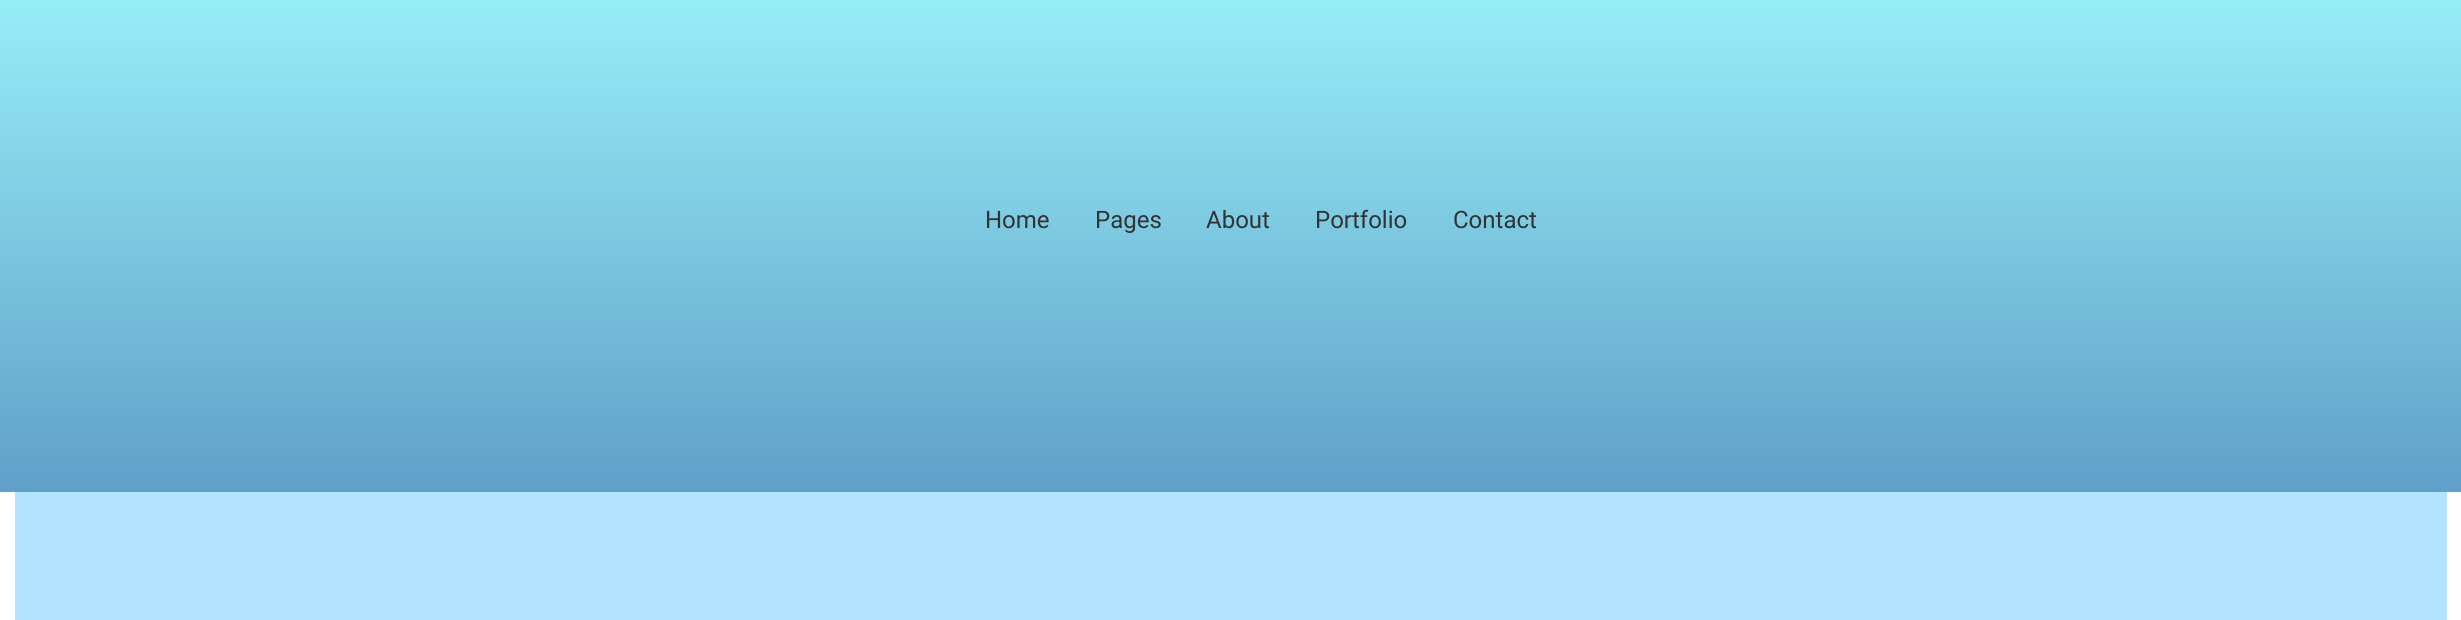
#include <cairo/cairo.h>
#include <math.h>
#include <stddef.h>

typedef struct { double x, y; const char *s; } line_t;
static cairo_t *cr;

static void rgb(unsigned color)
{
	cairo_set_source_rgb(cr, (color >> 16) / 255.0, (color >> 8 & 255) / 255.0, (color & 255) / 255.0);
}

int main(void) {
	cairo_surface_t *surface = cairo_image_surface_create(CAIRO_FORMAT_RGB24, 2461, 620);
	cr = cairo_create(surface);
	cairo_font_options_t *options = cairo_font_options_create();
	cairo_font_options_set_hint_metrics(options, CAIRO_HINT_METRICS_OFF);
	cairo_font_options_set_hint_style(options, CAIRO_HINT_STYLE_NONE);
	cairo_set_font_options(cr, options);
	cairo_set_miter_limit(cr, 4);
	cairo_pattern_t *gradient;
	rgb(0xffffff);
	cairo_paint(cr);
	gradient = cairo_pattern_create_linear(1231, 0, 1231, 492);
	cairo_pattern_add_color_stop_rgba(gradient, 0, 0.588, 0.933, 0.969, 1);
	cairo_pattern_add_color_stop_rgba(gradient, 1, 0.376, 0.624, 0.788, 1);
	cairo_set_source(cr, gradient);
	cairo_pattern_destroy(gradient);
	cairo_rectangle(cr, 0, 0, 2461, 492);
	cairo_fill(cr);
	rgb(0xb2e4ff);
	cairo_rectangle(cr, 15, 492, 2432, 128);
	cairo_fill(cr);
	cairo_select_font_face(cr, "Roboto", CAIRO_FONT_SLANT_NORMAL, CAIRO_FONT_WEIGHT_NORMAL);
	cairo_set_font_size(cr, 24);
	rgb(0x333333);
	{
		static const line_t items[] = {
			{985, 228, "Home"},
			{1095, 228, "Pages"},
			{1206, 228, "About"},
			{1315, 228, "Portfolio"},
			{1453, 228, "Contact"},
		};
		for (size_t i = 0; i < sizeof items / sizeof *items; i++) {
			cairo_move_to(cr, items[i].x, items[i].y);
			cairo_show_text(cr, items[i].s);
		}
	}
	cairo_surface_write_to_png(surface, "page.png");
	cairo_font_options_destroy(options);
	cairo_destroy(cr);
	cairo_surface_destroy(surface);
	return 0;
}
